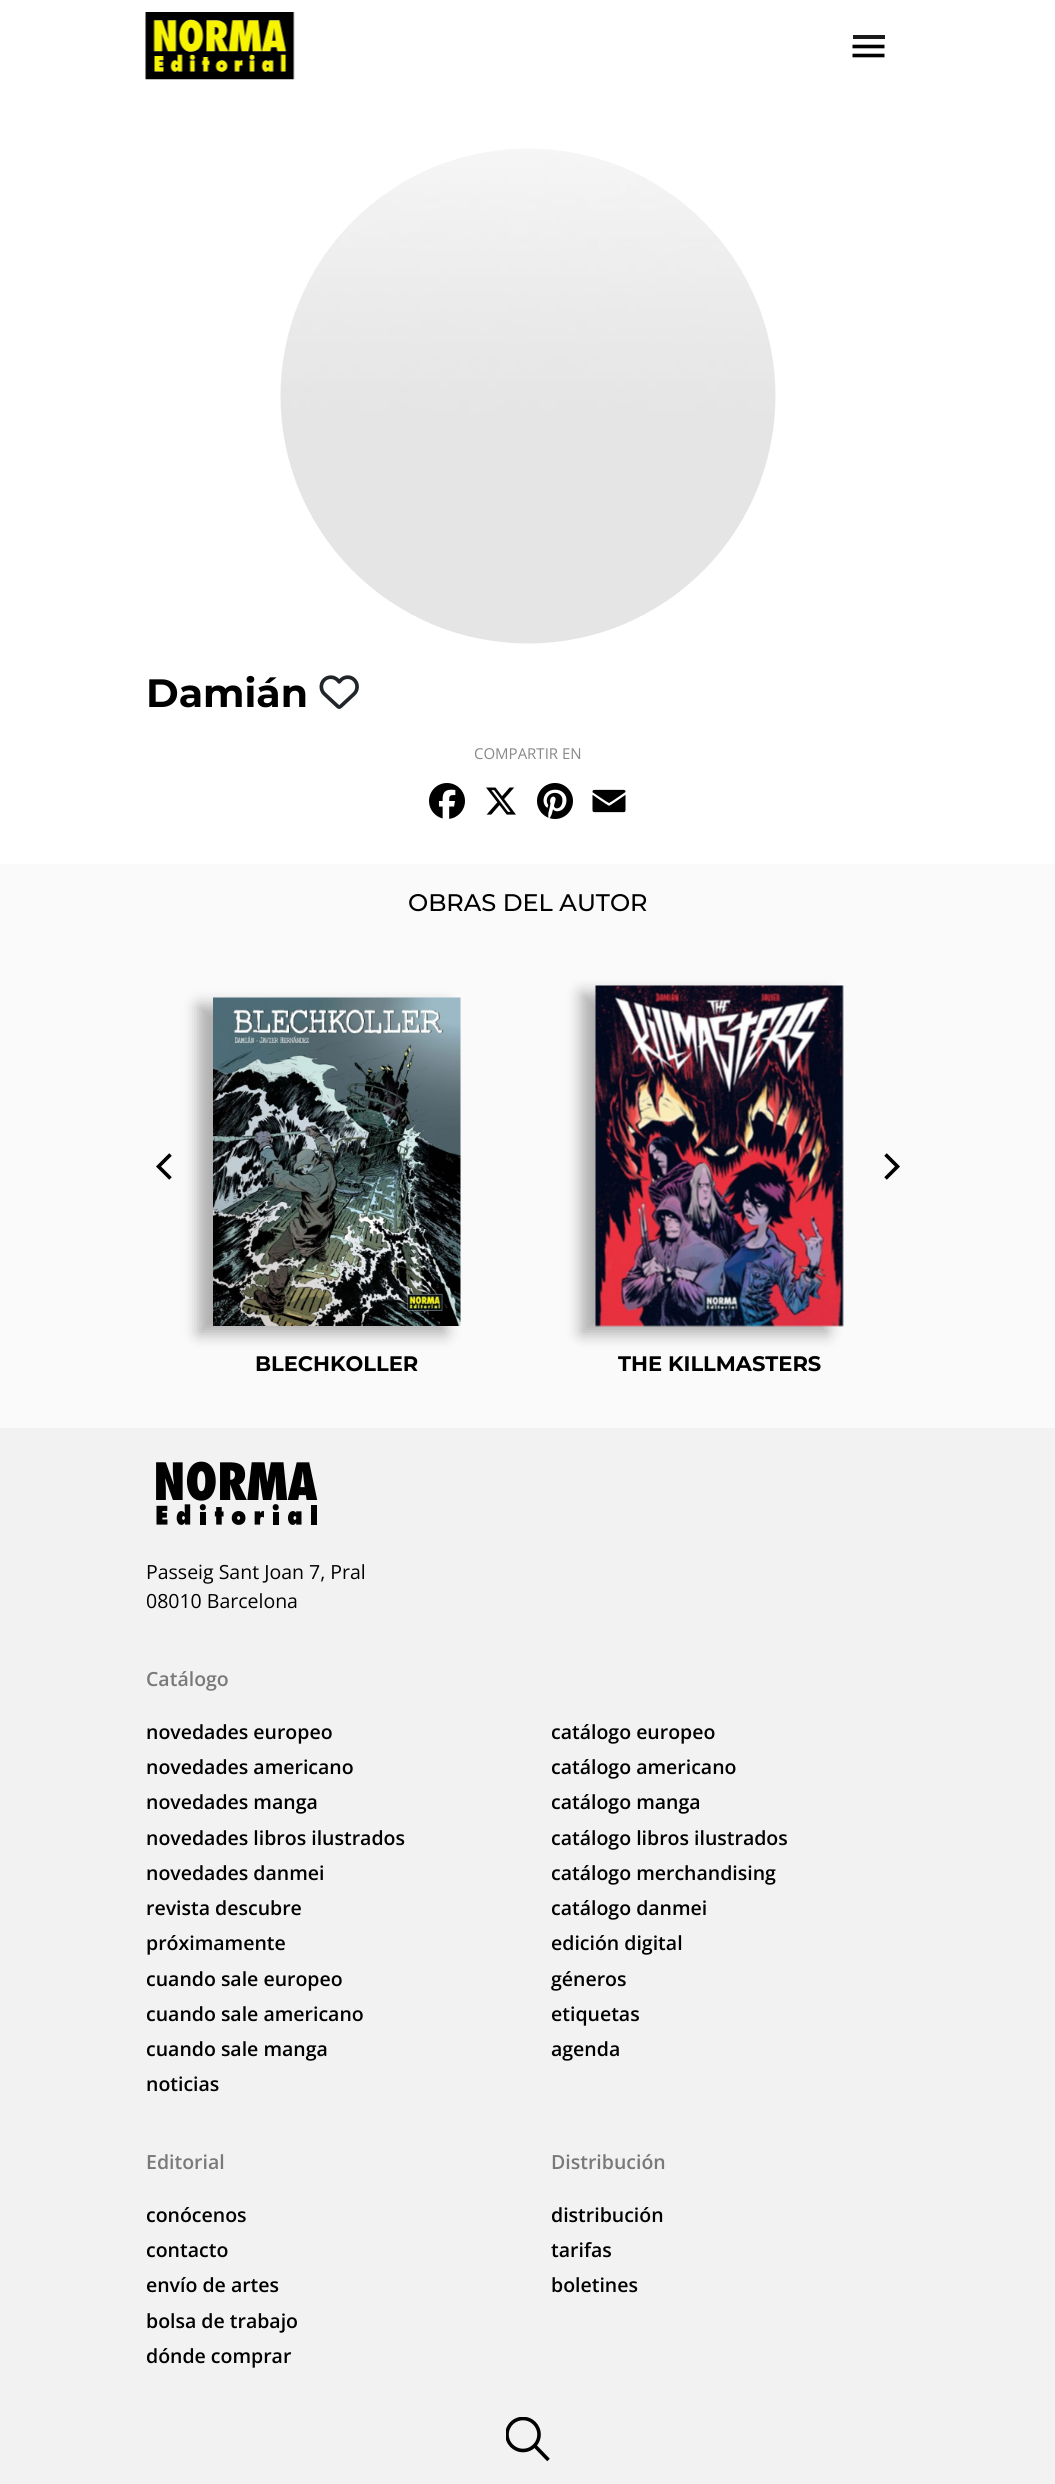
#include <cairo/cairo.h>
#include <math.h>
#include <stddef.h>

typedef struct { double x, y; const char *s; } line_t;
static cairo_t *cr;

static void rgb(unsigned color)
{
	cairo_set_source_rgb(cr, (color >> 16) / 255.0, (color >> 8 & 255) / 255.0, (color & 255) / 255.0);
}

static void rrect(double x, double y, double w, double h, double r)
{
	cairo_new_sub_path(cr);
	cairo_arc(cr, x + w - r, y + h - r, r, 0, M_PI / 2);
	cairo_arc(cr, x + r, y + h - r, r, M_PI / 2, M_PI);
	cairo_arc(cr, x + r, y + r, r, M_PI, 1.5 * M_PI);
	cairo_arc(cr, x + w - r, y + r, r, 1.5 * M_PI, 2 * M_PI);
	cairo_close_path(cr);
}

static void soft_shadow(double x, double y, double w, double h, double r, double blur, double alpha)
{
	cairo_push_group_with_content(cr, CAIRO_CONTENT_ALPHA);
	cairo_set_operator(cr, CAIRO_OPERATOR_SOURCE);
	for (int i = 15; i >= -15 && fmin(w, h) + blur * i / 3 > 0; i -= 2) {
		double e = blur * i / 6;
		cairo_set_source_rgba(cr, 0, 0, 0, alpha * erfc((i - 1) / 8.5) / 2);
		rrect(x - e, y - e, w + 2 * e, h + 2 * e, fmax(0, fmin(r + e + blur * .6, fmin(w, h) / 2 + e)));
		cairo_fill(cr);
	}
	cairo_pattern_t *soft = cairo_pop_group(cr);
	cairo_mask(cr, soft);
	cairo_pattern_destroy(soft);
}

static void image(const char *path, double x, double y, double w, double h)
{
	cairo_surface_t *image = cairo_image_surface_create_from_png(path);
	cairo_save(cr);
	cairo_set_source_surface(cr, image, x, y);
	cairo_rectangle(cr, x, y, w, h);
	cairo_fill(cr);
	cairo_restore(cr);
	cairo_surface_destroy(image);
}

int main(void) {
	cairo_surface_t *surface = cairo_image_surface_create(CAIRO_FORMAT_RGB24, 1055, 2484);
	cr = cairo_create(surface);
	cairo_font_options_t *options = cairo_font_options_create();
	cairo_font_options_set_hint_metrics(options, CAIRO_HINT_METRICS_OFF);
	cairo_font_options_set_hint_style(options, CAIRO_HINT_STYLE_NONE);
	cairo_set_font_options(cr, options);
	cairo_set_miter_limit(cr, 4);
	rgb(0xffffff);
	cairo_paint(cr);
	image("img/1.png", 145, 12, 150, 68);
	rgb(0x1a1a1a);
	cairo_rectangle(cr, 853, 35, 32, 4);
	cairo_fill(cr);
	cairo_new_path(cr);
	cairo_move_to(cr, 852.5, 55.5);
	cairo_line_to(cr, 884.5, 55.5);
	cairo_move_to(cr, 852.5, 46.5);
	cairo_line_to(cr, 884.5, 46.5);
	rgb(0x000000);
	cairo_set_line_width(cr, 3.6);
	cairo_stroke(cr);
	image("img/2.png", 280, 148, 496, 496);
	image("img/3.png", 319, 675, 40, 34);
	image("img/4.png", 429, 783, 36, 36);
	image("img/5.png", 486, 787, 30, 28);
	image("img/6.png", 537, 783, 36, 36);
	image("img/7.png", 592, 789, 34, 24);
	rgb(0xfafafa);
	cairo_rectangle(cr, 0, 864, 1055, 564);
	cairo_fill(cr);
	cairo_new_path(cr);
	cairo_move_to(cr, 170.5, 1154.5);
	cairo_line_to(cr, 158.5, 1166.5);
	cairo_line_to(cr, 170.5, 1178.5);
	rgb(0x000000);
	cairo_stroke(cr);
	cairo_new_path(cr);
	cairo_move_to(cr, 885.5, 1178.5);
	cairo_line_to(cr, 897.5, 1166.5);
	cairo_line_to(cr, 885.5, 1154.5);
	cairo_stroke(cr);
	rgb(0x000000);
	soft_shadow(198, 1005, 248, 329, 0, 7.5, 0.3);
	image("img/8.png", 213, 997, 248, 329);
	soft_shadow(581, 993, 247, 341, 0, 7.5, 0.3);
	image("img/9.png", 595, 985, 249, 342);
	rgb(0xf2f2f2);
	cairo_rectangle(cr, 0, 1428, 1055, 1056);
	cairo_fill(cr);
	image("img/10.png", 156, 1461, 162, 64);
	cairo_save(cr);
	cairo_rectangle(cr, 506, 2417, 45, 45);
	cairo_clip(cr);
	cairo_arc(cr, 523, 2434.5, 16, 0, 2 * M_PI);
	rgb(0x000000);
	cairo_stroke(cr);
	cairo_restore(cr);
	cairo_new_path(cr);
	cairo_move_to(cr, 534.5, 2445.5);
	cairo_line_to(cr, 548.5, 2460);
	rgb(0x000000);
	cairo_stroke(cr);
	cairo_select_font_face(cr, "Montserrat", CAIRO_FONT_SLANT_NORMAL, CAIRO_FONT_WEIGHT_BOLD);
	cairo_set_font_size(cr, 39.5);
	cairo_move_to(cr, 146, 707);
	cairo_show_text(cr, "Damián");
	cairo_select_font_face(cr, "Open Sans", CAIRO_FONT_SLANT_NORMAL, CAIRO_FONT_WEIGHT_NORMAL);
	cairo_set_font_size(cr, 15);
	rgb(0x888888);
	cairo_move_to(cr, 474, 759);
	cairo_show_text(cr, "COMPARTIR EN");
	cairo_select_font_face(cr, "Montserrat Medium", CAIRO_FONT_SLANT_NORMAL, CAIRO_FONT_WEIGHT_NORMAL);
	cairo_set_font_size(cr, 24);
	rgb(0x000000);
	cairo_move_to(cr, 408, 911);
	cairo_show_text(cr, "OBRAS DEL AUTOR");
	cairo_select_font_face(cr, "Montserrat", CAIRO_FONT_SLANT_NORMAL, CAIRO_FONT_WEIGHT_BOLD);
	cairo_set_font_size(cr, 21);
	cairo_move_to(cr, 255, 1371);
	cairo_show_text(cr, "BLECHKOLLER");
	cairo_move_to(cr, 618, 1371);
	cairo_show_text(cr, "THE KILLMASTERS");
	cairo_select_font_face(cr, "Open Sans", CAIRO_FONT_SLANT_NORMAL, CAIRO_FONT_WEIGHT_NORMAL);
	cairo_set_font_size(cr, 19.5);
	cairo_move_to(cr, 146, 1579);
	cairo_show_text(cr, "Passeig Sant Joan 7, Pral");
	cairo_move_to(cr, 146, 1608);
	cairo_show_text(cr, "08010 Barcelona");
	cairo_select_font_face(cr, "Open Sans SemiBold", CAIRO_FONT_SLANT_NORMAL, CAIRO_FONT_WEIGHT_NORMAL);
	rgb(0x797979);
	cairo_move_to(cr, 146, 1686);
	cairo_show_text(cr, "Catálogo");
	rgb(0x000000);
	{
		static const line_t items[] = {
			{146, 1739, "novedades europeo"},
			{551, 1739, "catálogo europeo"},
			{146, 1774, "novedades americano"},
			{551, 1774, "catálogo americano"},
			{146, 1809, "novedades manga"},
			{551, 1809, "catálogo manga"},
			{146, 1845, "novedades libros ilustrados"},
			{551, 1845, "catálogo libros ilustrados"},
			{146, 1880, "novedades danmei"},
			{551, 1880, "catálogo merchandising"},
			{146, 1915, "revista descubre"},
			{551, 1915, "catálogo danmei"},
			{146, 1950, "próximamente"},
			{551, 1950, "edición digital"},
			{146, 1986, "cuando sale europeo"},
			{551, 1986, "géneros"},
			{146, 2021, "cuando sale americano"},
			{551, 2021, "etiquetas"},
			{146, 2056, "cuando sale manga"},
			{551, 2056, "agenda"},
			{146, 2091, "noticias"},
		};
		for (size_t i = 0; i < sizeof items / sizeof *items; i++) {
			cairo_move_to(cr, items[i].x, items[i].y);
			cairo_show_text(cr, items[i].s);
		}
	}
	rgb(0x797979);
	cairo_move_to(cr, 146, 2169);
	cairo_show_text(cr, "Editorial");
	rgb(0x000000);
	{
		static const line_t items[] = {
			{146, 2222, "conócenos"},
			{146, 2257, "contacto"},
			{146, 2292, "envío de artes"},
			{146, 2328, "bolsa de trabajo"},
			{146, 2363, "dónde comprar"},
		};
		for (size_t i = 0; i < sizeof items / sizeof *items; i++) {
			cairo_move_to(cr, items[i].x, items[i].y);
			cairo_show_text(cr, items[i].s);
		}
	}
	rgb(0x797979);
	cairo_move_to(cr, 551, 2169);
	cairo_show_text(cr, "Distribución");
	rgb(0x000000);
	{
		static const line_t items[] = {
			{551, 2222, "distribución"},
			{551, 2257, "tarifas"},
			{551, 2292, "boletines"},
		};
		for (size_t i = 0; i < sizeof items / sizeof *items; i++) {
			cairo_move_to(cr, items[i].x, items[i].y);
			cairo_show_text(cr, items[i].s);
		}
	}
	cairo_surface_write_to_png(surface, "page.png");
	cairo_font_options_destroy(options);
	cairo_destroy(cr);
	cairo_surface_destroy(surface);
	return 0;
}
